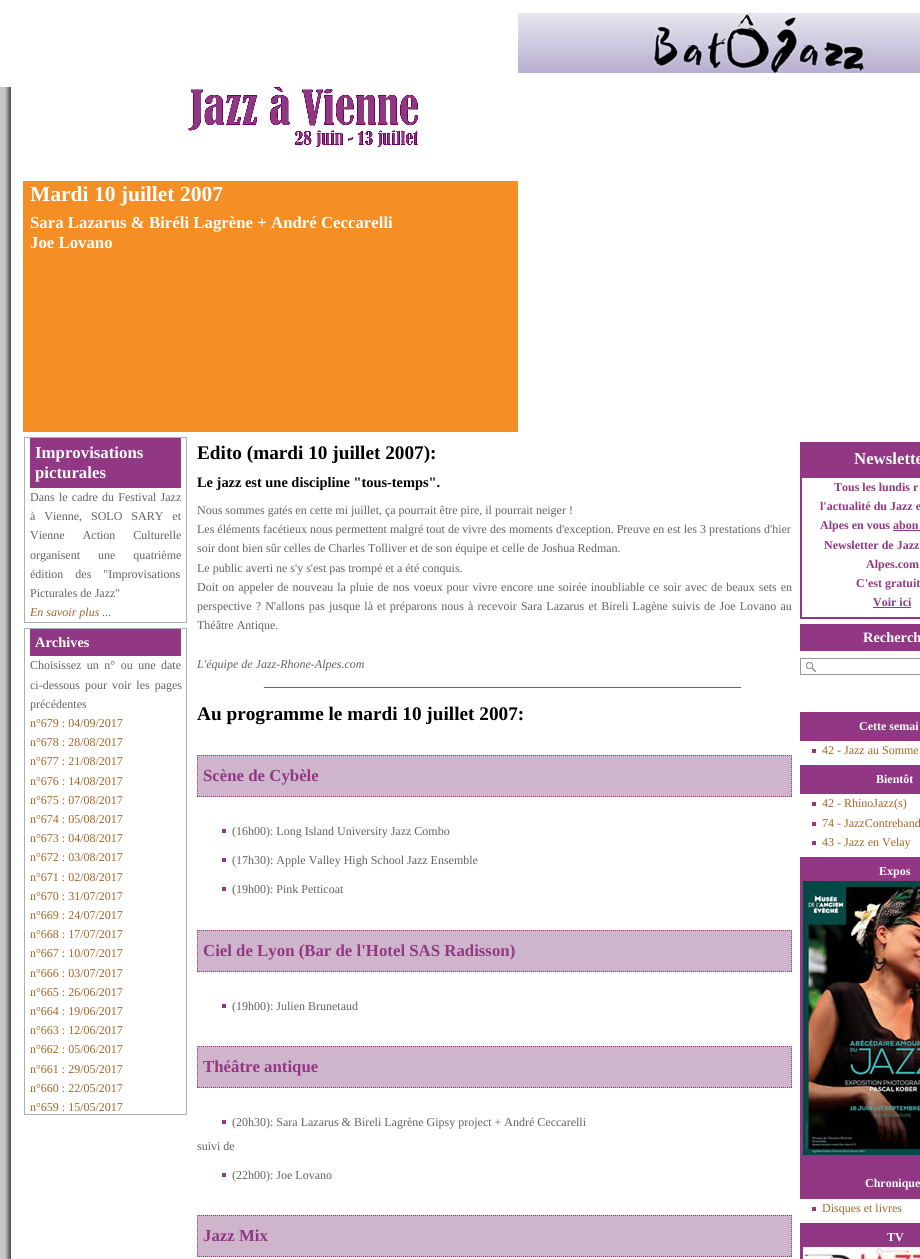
#include <cairo/cairo.h>
#include <math.h>
#include <stddef.h>

typedef struct { double x, y; const char *s; } line_t;
typedef struct { double x, y, w, h; unsigned color; } box_t;
static cairo_t *cr;

static void rgb(unsigned color)
{
	cairo_set_source_rgb(cr, (color >> 16) / 255.0, (color >> 8 & 255) / 255.0, (color & 255) / 255.0);
}

static void tracked(double x, double y, const char *s, double letter, double word)
{
	cairo_move_to(cr, x, y);
	while (*s) {
		char ch[5] = {0};
		int n = 0;
		do ch[n++] = *s++; while ((*s & 0xC0) == 0x80);
		cairo_show_text(cr, ch);
		cairo_rel_move_to(cr, letter + word * (*ch == ' '), 0);
	}
}

static void image(const char *path, double x, double y, double w, double h)
{
	cairo_surface_t *image = cairo_image_surface_create_from_png(path);
	cairo_save(cr);
	cairo_set_source_surface(cr, image, x, y);
	cairo_rectangle(cr, x, y, w, h);
	cairo_fill(cr);
	cairo_restore(cr);
	cairo_surface_destroy(image);
}

int main(void) {
	cairo_surface_t *surface = cairo_image_surface_create(CAIRO_FORMAT_RGB24, 920, 1259);
	cr = cairo_create(surface);
	cairo_font_options_t *options = cairo_font_options_create();
	cairo_font_options_set_hint_metrics(options, CAIRO_HINT_METRICS_OFF);
	cairo_font_options_set_hint_style(options, CAIRO_HINT_STYLE_NONE);
	cairo_set_font_options(cr, options);
	cairo_set_miter_limit(cr, 4);
	rgb(0xffffff);
	cairo_paint(cr);
	image("img/1.png", 0, 87, 11, 345);
	image("img/2.png", 518, 13, 402, 60);
	image("img/3.png", 4, 87, 414, 70);
	rgb(0xf58e24);
	cairo_rectangle(cr, 23, 181, 495, 251);
	cairo_fill(cr);
	image("img/4.png", 0, 432, 11, 827);
	cairo_rectangle(cr, 24.5, 437.5, 162, 185);
	rgb(0xafafaf);
	cairo_set_line_width(cr, 1);
	cairo_stroke(cr);
	rgb(0x913784);
	cairo_rectangle(cr, 30, 438, 151, 50);
	cairo_fill(cr);
	cairo_rectangle(cr, 24.5, 628.5, 162, 486);
	rgb(0xafafaf);
	cairo_stroke(cr);
	rgb(0x913784);
	cairo_rectangle(cr, 30, 629, 151, 27);
	cairo_fill(cr);
	image("img/5.png", 262, 685, 479, 4);
	rgb(0xcfb5cb);
	cairo_rectangle(cr, 197, 755, 595, 42);
	cairo_fill(cr);
	cairo_new_path(cr);
	cairo_move_to(cr, 197, 755.5);
	cairo_line_to(cr, 792, 755.5);
	rgb(0x913784);
	cairo_set_dash(cr, (double[]){1, 1}, 2, 0);
	cairo_stroke(cr);
	cairo_new_path(cr);
	cairo_move_to(cr, 791.5, 755);
	cairo_line_to(cr, 791.5, 797);
	cairo_stroke(cr);
	cairo_new_path(cr);
	cairo_move_to(cr, 197, 796.5);
	cairo_line_to(cr, 792, 796.5);
	cairo_stroke(cr);
	cairo_new_path(cr);
	cairo_move_to(cr, 197.5, 755);
	cairo_line_to(cr, 197.5, 797);
	cairo_stroke(cr);
	{
		static const box_t items[] = {
			{222, 829, 4, 4, 0x923784},
			{222, 858, 4, 4, 0x923784},
			{222, 887, 4, 4, 0x923784},
			{197, 930, 595, 42, 0xcfb5cb},
		};
		for (size_t i = 0; i < sizeof items / sizeof *items; i++) {
			rgb(items[i].color);
			cairo_rectangle(cr, items[i].x, items[i].y, items[i].w, items[i].h);
			cairo_fill(cr);
		}
	}
	cairo_new_path(cr);
	cairo_move_to(cr, 197, 930.5);
	cairo_line_to(cr, 792, 930.5);
	rgb(0x913784);
	cairo_stroke(cr);
	cairo_new_path(cr);
	cairo_move_to(cr, 791.5, 930);
	cairo_line_to(cr, 791.5, 972);
	cairo_stroke(cr);
	cairo_new_path(cr);
	cairo_move_to(cr, 197, 971.5);
	cairo_line_to(cr, 792, 971.5);
	cairo_stroke(cr);
	cairo_new_path(cr);
	cairo_move_to(cr, 197.5, 930);
	cairo_line_to(cr, 197.5, 972);
	cairo_stroke(cr);
	rgb(0x923784);
	cairo_rectangle(cr, 222, 1004, 4, 4);
	cairo_fill(cr);
	rgb(0xcfb5cb);
	cairo_rectangle(cr, 197, 1046, 595, 42);
	cairo_fill(cr);
	cairo_new_path(cr);
	cairo_move_to(cr, 197, 1046.5);
	cairo_line_to(cr, 792, 1046.5);
	rgb(0x913784);
	cairo_stroke(cr);
	cairo_new_path(cr);
	cairo_move_to(cr, 791.5, 1046);
	cairo_line_to(cr, 791.5, 1088);
	cairo_stroke(cr);
	cairo_new_path(cr);
	cairo_move_to(cr, 197, 1087.5);
	cairo_line_to(cr, 792, 1087.5);
	cairo_stroke(cr);
	cairo_new_path(cr);
	cairo_move_to(cr, 197.5, 1046);
	cairo_line_to(cr, 197.5, 1088);
	cairo_stroke(cr);
	{
		static const box_t items[] = {
			{222, 1120, 4, 4, 0x923784},
			{222, 1173, 4, 4, 0x923784},
			{197, 1215, 595, 42, 0xcfb5cb},
		};
		for (size_t i = 0; i < sizeof items / sizeof *items; i++) {
			rgb(items[i].color);
			cairo_rectangle(cr, items[i].x, items[i].y, items[i].w, items[i].h);
			cairo_fill(cr);
		}
	}
	cairo_new_path(cr);
	cairo_move_to(cr, 197, 1215.5);
	cairo_line_to(cr, 792, 1215.5);
	rgb(0x913784);
	cairo_stroke(cr);
	cairo_new_path(cr);
	cairo_move_to(cr, 791.5, 1215);
	cairo_line_to(cr, 791.5, 1257);
	cairo_stroke(cr);
	cairo_new_path(cr);
	cairo_move_to(cr, 197, 1256.5);
	cairo_line_to(cr, 792, 1256.5);
	cairo_stroke(cr);
	cairo_new_path(cr);
	cairo_move_to(cr, 197.5, 1215);
	cairo_line_to(cr, 197.5, 1257);
	cairo_stroke(cr);
	cairo_rectangle(cr, 800, 442, 120, 34);
	cairo_fill(cr);
	cairo_rectangle(cr, 801, 477, 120, 141);
	cairo_set_line_width(cr, 2);
	cairo_set_dash(cr, NULL, 0, 0);
	cairo_stroke(cr);
	{
		static const box_t items[] = {
			{893, 530, 27, 1, 0x913784},
			{873, 607, 38, 1, 0x913784},
			{800, 624, 120, 27, 0x913784},
		};
		for (size_t i = 0; i < sizeof items / sizeof *items; i++) {
			rgb(items[i].color);
			cairo_rectangle(cr, items[i].x, items[i].y, items[i].w, items[i].h);
			cairo_fill(cr);
		}
	}
	image("img/6.png", 806, 662, 10, 10);
	cairo_rectangle(cr, 800.5, 658.5, 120, 16);
	rgb(0x999999);
	cairo_set_line_width(cr, 1);
	cairo_stroke(cr);
	{
		static const box_t items[] = {
			{800, 712, 120, 29, 0x913784},
			{812, 749, 4, 4, 0x923784},
			{800, 765, 120, 29, 0x913784},
			{812, 802, 4, 4, 0x923784},
			{812, 822, 4, 4, 0x923784},
			{812, 841, 4, 4, 0x923784},
			{800, 857, 120, 342, 0x913784},
		};
		for (size_t i = 0; i < sizeof items / sizeof *items; i++) {
			rgb(items[i].color);
			cairo_rectangle(cr, items[i].x, items[i].y, items[i].w, items[i].h);
			cairo_fill(cr);
		}
	}
	image("img/7.png", 803, 881, 117, 274);
	rgb(0x923784);
	cairo_rectangle(cr, 812, 1207, 4, 4);
	cairo_fill(cr);
	rgb(0x913784);
	cairo_rectangle(cr, 800, 1223, 120, 36);
	cairo_fill(cr);
	image("img/8.png", 803, 1247, 117, 12);
	cairo_select_font_face(cr, "Liberation Serif", CAIRO_FONT_SLANT_NORMAL, CAIRO_FONT_WEIGHT_BOLD);
	cairo_set_font_size(cr, 21.5);
	rgb(0xffffff);
	cairo_move_to(cr, 30, 201);
	cairo_show_text(cr, "Mardi 10 juillet 2007");
	cairo_set_font_size(cr, 16.8);
	{
		static const line_t items[] = {
			{30, 228, "Sara Lazarus & Biréli Lagrène + André Ceccarelli"},
			{30, 248, "Joe Lovano"},
			{35, 458, "Improvisations"},
			{35, 478, "picturales"},
		};
		for (size_t i = 0; i < sizeof items / sizeof *items; i++) {
			cairo_move_to(cr, items[i].x, items[i].y);
			cairo_show_text(cr, items[i].s);
		}
	}
	cairo_select_font_face(cr, "Liberation Serif", CAIRO_FONT_SLANT_NORMAL, CAIRO_FONT_WEIGHT_NORMAL);
	cairo_set_font_size(cr, 12);
	rgb(0x616160);
	tracked(30, 501, "Dans le cadre du Festival Jazz", 0, 1.25);
	tracked(30, 520, "à Vienne, SOLO SARY et", 0, 6);
	tracked(30, 539, "Vienne Action Culturelle", 0, 15);
	tracked(30, 559, "organisent une quatrième", 0, 15);
	tracked(30, 578, "édition des \"Improvisations", 0, 9);
	cairo_move_to(cr, 30, 597);
	cairo_show_text(cr, "Picturales de Jazz\"");
	cairo_select_font_face(cr, "Liberation Serif", CAIRO_FONT_SLANT_ITALIC, CAIRO_FONT_WEIGHT_NORMAL);
	rgb(0x9f6527);
	cairo_move_to(cr, 30, 616);
	cairo_show_text(cr, "En savoir plus ...");
	cairo_select_font_face(cr, "Liberation Serif", CAIRO_FONT_SLANT_NORMAL, CAIRO_FONT_WEIGHT_BOLD);
	cairo_set_font_size(cr, 14.4);
	rgb(0xffffff);
	cairo_move_to(cr, 35, 647);
	cairo_show_text(cr, "Archives");
	cairo_select_font_face(cr, "Liberation Serif", CAIRO_FONT_SLANT_NORMAL, CAIRO_FONT_WEIGHT_NORMAL);
	cairo_set_font_size(cr, 12);
	rgb(0x616160);
	tracked(30, 669, "Choisissez un n° ou une date", 0, 2.5);
	tracked(30, 689, "ci-dessous pour voir les pages", 0, 2);
	cairo_move_to(cr, 30, 708);
	cairo_show_text(cr, "précédentes");
	rgb(0x9f6527);
	{
		static const line_t items[] = {
			{30, 727, "n°679 : 04/09/2017"},
			{30, 746, "n°678 : 28/08/2017"},
			{30, 765, "n°677 : 21/08/2017"},
			{30, 785, "n°676 : 14/08/2017"},
			{30, 804, "n°675 : 07/08/2017"},
			{30, 823, "n°674 : 05/08/2017"},
			{30, 842, "n°673 : 04/08/2017"},
			{30, 861, "n°672 : 03/08/2017"},
			{30, 881, "n°671 : 02/08/2017"},
			{30, 900, "n°670 : 31/07/2017"},
			{30, 919, "n°669 : 24/07/2017"},
			{30, 938, "n°668 : 17/07/2017"},
			{30, 957, "n°667 : 10/07/2017"},
			{30, 977, "n°666 : 03/07/2017"},
			{30, 996, "n°665 : 26/06/2017"},
			{30, 1015, "n°664 : 19/06/2017"},
			{30, 1034, "n°663 : 12/06/2017"},
			{30, 1053, "n°662 : 05/06/2017"},
			{30, 1073, "n°661 : 29/05/2017"},
			{30, 1092, "n°660 : 22/05/2017"},
			{30, 1111, "n°659 : 15/05/2017"},
		};
		for (size_t i = 0; i < sizeof items / sizeof *items; i++) {
			cairo_move_to(cr, items[i].x, items[i].y);
			cairo_show_text(cr, items[i].s);
		}
	}
	cairo_select_font_face(cr, "Liberation Serif", CAIRO_FONT_SLANT_NORMAL, CAIRO_FONT_WEIGHT_BOLD);
	cairo_set_font_size(cr, 19.25);
	rgb(0x000000);
	cairo_move_to(cr, 197, 459);
	cairo_show_text(cr, "Edito (mardi 10 juillet 2007):");
	cairo_set_font_size(cr, 14.4);
	cairo_move_to(cr, 197, 487);
	cairo_show_text(cr, "Le jazz est une discipline \"tous-temps\".");
	cairo_select_font_face(cr, "Liberation Serif", CAIRO_FONT_SLANT_NORMAL, CAIRO_FONT_WEIGHT_NORMAL);
	cairo_set_font_size(cr, 12);
	rgb(0x616160);
	{
		static const line_t items[] = {
			{197, 514, "Nous sommes gatés en cette mi juillet, ça pourrait être pire, il pourrait neiger !"},
			{197, 533, "Les éléments facétieux nous permettent malgré tout de vivre des moments d'exception. Preuve en est les 3 prestations d'hier"},
			{197, 552, "soir dont bien sûr celles de Charles Tolliver et de son équipe et celle de Joshua Redman."},
			{197, 572, "Le public averti ne s'y s'est pas trompé et a été conquis."},
		};
		for (size_t i = 0; i < sizeof items / sizeof *items; i++) {
			cairo_move_to(cr, items[i].x, items[i].y);
			cairo_show_text(cr, items[i].s);
		}
	}
	tracked(197, 591, "Doit on appeler de nouveau la pluie de nos voeux pour vivre encore une soirée inoubliable ce soir avec de beaux sets en", 0, 0.9);
	tracked(197, 610, "perspective ? N'allons pas jusque là et préparons nous à recevoir Sara Lazarus et Bireli Lagène suivis de Joe Lovano au", 0, 1.1);
	cairo_move_to(cr, 197, 629);
	cairo_show_text(cr, "Théâtre Antique.");
	cairo_select_font_face(cr, "Liberation Serif", CAIRO_FONT_SLANT_ITALIC, CAIRO_FONT_WEIGHT_NORMAL);
	cairo_move_to(cr, 197, 668);
	cairo_show_text(cr, "L'équipe de Jazz-Rhone-Alpes.com");
	cairo_select_font_face(cr, "Liberation Serif", CAIRO_FONT_SLANT_NORMAL, CAIRO_FONT_WEIGHT_BOLD);
	cairo_set_font_size(cr, 19.25);
	rgb(0x000000);
	cairo_move_to(cr, 197, 720);
	cairo_show_text(cr, "Au programme le mardi 10 juillet 2007:");
	cairo_set_font_size(cr, 16.8);
	rgb(0x913784);
	cairo_move_to(cr, 203, 781);
	cairo_show_text(cr, "Scène de Cybèle");
	cairo_select_font_face(cr, "Liberation Serif", CAIRO_FONT_SLANT_NORMAL, CAIRO_FONT_WEIGHT_NORMAL);
	cairo_set_font_size(cr, 12);
	rgb(0x616160);
	{
		static const line_t items[] = {
			{232, 835, "(16h00): Long Island University Jazz Combo"},
			{232, 864, "(17h30): Apple Valley High School Jazz Ensemble"},
			{232, 893, "(19h00): Pink Petticoat"},
		};
		for (size_t i = 0; i < sizeof items / sizeof *items; i++) {
			cairo_move_to(cr, items[i].x, items[i].y);
			cairo_show_text(cr, items[i].s);
		}
	}
	cairo_select_font_face(cr, "Liberation Serif", CAIRO_FONT_SLANT_NORMAL, CAIRO_FONT_WEIGHT_BOLD);
	cairo_set_font_size(cr, 16.8);
	rgb(0x913784);
	cairo_move_to(cr, 203, 956);
	cairo_show_text(cr, "Ciel de Lyon (Bar de l'Hotel SAS Radisson)");
	cairo_select_font_face(cr, "Liberation Serif", CAIRO_FONT_SLANT_NORMAL, CAIRO_FONT_WEIGHT_NORMAL);
	cairo_set_font_size(cr, 12);
	rgb(0x616160);
	cairo_move_to(cr, 232, 1010);
	cairo_show_text(cr, "(19h00): Julien Brunetaud");
	cairo_select_font_face(cr, "Liberation Serif", CAIRO_FONT_SLANT_NORMAL, CAIRO_FONT_WEIGHT_BOLD);
	cairo_set_font_size(cr, 16.8);
	rgb(0x913784);
	cairo_move_to(cr, 203, 1072);
	cairo_show_text(cr, "Théâtre antique");
	cairo_select_font_face(cr, "Liberation Serif", CAIRO_FONT_SLANT_NORMAL, CAIRO_FONT_WEIGHT_NORMAL);
	cairo_set_font_size(cr, 12);
	rgb(0x616160);
	{
		static const line_t items[] = {
			{232, 1126, "(20h30): Sara Lazarus & Bireli Lagrène Gipsy project + André Ceccarelli"},
			{197, 1150, "suivi de"},
			{232, 1179, "(22h00): Joe Lovano"},
		};
		for (size_t i = 0; i < sizeof items / sizeof *items; i++) {
			cairo_move_to(cr, items[i].x, items[i].y);
			cairo_show_text(cr, items[i].s);
		}
	}
	cairo_select_font_face(cr, "Liberation Serif", CAIRO_FONT_SLANT_NORMAL, CAIRO_FONT_WEIGHT_BOLD);
	cairo_set_font_size(cr, 16.8);
	rgb(0x913784);
	cairo_move_to(cr, 203, 1241);
	cairo_show_text(cr, "Jazz Mix");
	rgb(0xffffff);
	cairo_move_to(cr, 854, 464);
	cairo_show_text(cr, "Newslette");
	cairo_set_font_size(cr, 12);
	rgb(0x913784);
	{
		static const line_t items[] = {
			{834, 491, "Tous les lundis r"},
			{820, 510, "l'actualité du Jazz e"},
			{820, 529, "Alpes en vous abon"},
			{824, 549, "Newsletter de Jazz"},
			{866, 568, "Alpes.com"},
			{856, 587, "C'est gratuit"},
			{873, 606, "Voir ici"},
		};
		for (size_t i = 0; i < sizeof items / sizeof *items; i++) {
			cairo_move_to(cr, items[i].x, items[i].y);
			cairo_show_text(cr, items[i].s);
		}
	}
	cairo_set_font_size(cr, 14.4);
	rgb(0xffffff);
	cairo_move_to(cr, 863, 642);
	cairo_show_text(cr, "Recherch");
	cairo_set_font_size(cr, 12);
	cairo_move_to(cr, 859, 730);
	cairo_show_text(cr, "Cette semai");
	cairo_select_font_face(cr, "Liberation Serif", CAIRO_FONT_SLANT_NORMAL, CAIRO_FONT_WEIGHT_NORMAL);
	rgb(0x9f6527);
	cairo_move_to(cr, 822, 754);
	cairo_show_text(cr, "42 - Jazz au Somme");
	cairo_select_font_face(cr, "Liberation Serif", CAIRO_FONT_SLANT_NORMAL, CAIRO_FONT_WEIGHT_BOLD);
	rgb(0xffffff);
	cairo_move_to(cr, 876, 783);
	cairo_show_text(cr, "Bientôt");
	cairo_select_font_face(cr, "Liberation Serif", CAIRO_FONT_SLANT_NORMAL, CAIRO_FONT_WEIGHT_NORMAL);
	rgb(0x9f6527);
	{
		static const line_t items[] = {
			{822, 807, "42 - RhinoJazz(s)"},
			{822, 827, "74 - JazzContreband"},
			{822, 846, "43 - Jazz en Velay"},
		};
		for (size_t i = 0; i < sizeof items / sizeof *items; i++) {
			cairo_move_to(cr, items[i].x, items[i].y);
			cairo_show_text(cr, items[i].s);
		}
	}
	cairo_select_font_face(cr, "Liberation Serif", CAIRO_FONT_SLANT_NORMAL, CAIRO_FONT_WEIGHT_BOLD);
	rgb(0xffffff);
	cairo_move_to(cr, 879, 875);
	cairo_show_text(cr, "Expos");
	cairo_move_to(cr, 865, 1187);
	cairo_show_text(cr, "Chronique");
	cairo_select_font_face(cr, "Liberation Serif", CAIRO_FONT_SLANT_NORMAL, CAIRO_FONT_WEIGHT_NORMAL);
	rgb(0x9f6527);
	cairo_move_to(cr, 822, 1212);
	cairo_show_text(cr, "Disques et livres");
	cairo_select_font_face(cr, "Liberation Serif", CAIRO_FONT_SLANT_NORMAL, CAIRO_FONT_WEIGHT_BOLD);
	rgb(0xffffff);
	cairo_move_to(cr, 887, 1241);
	cairo_show_text(cr, "TV");
	cairo_surface_write_to_png(surface, "page.png");
	cairo_font_options_destroy(options);
	cairo_destroy(cr);
	cairo_surface_destroy(surface);
	return 0;
}
